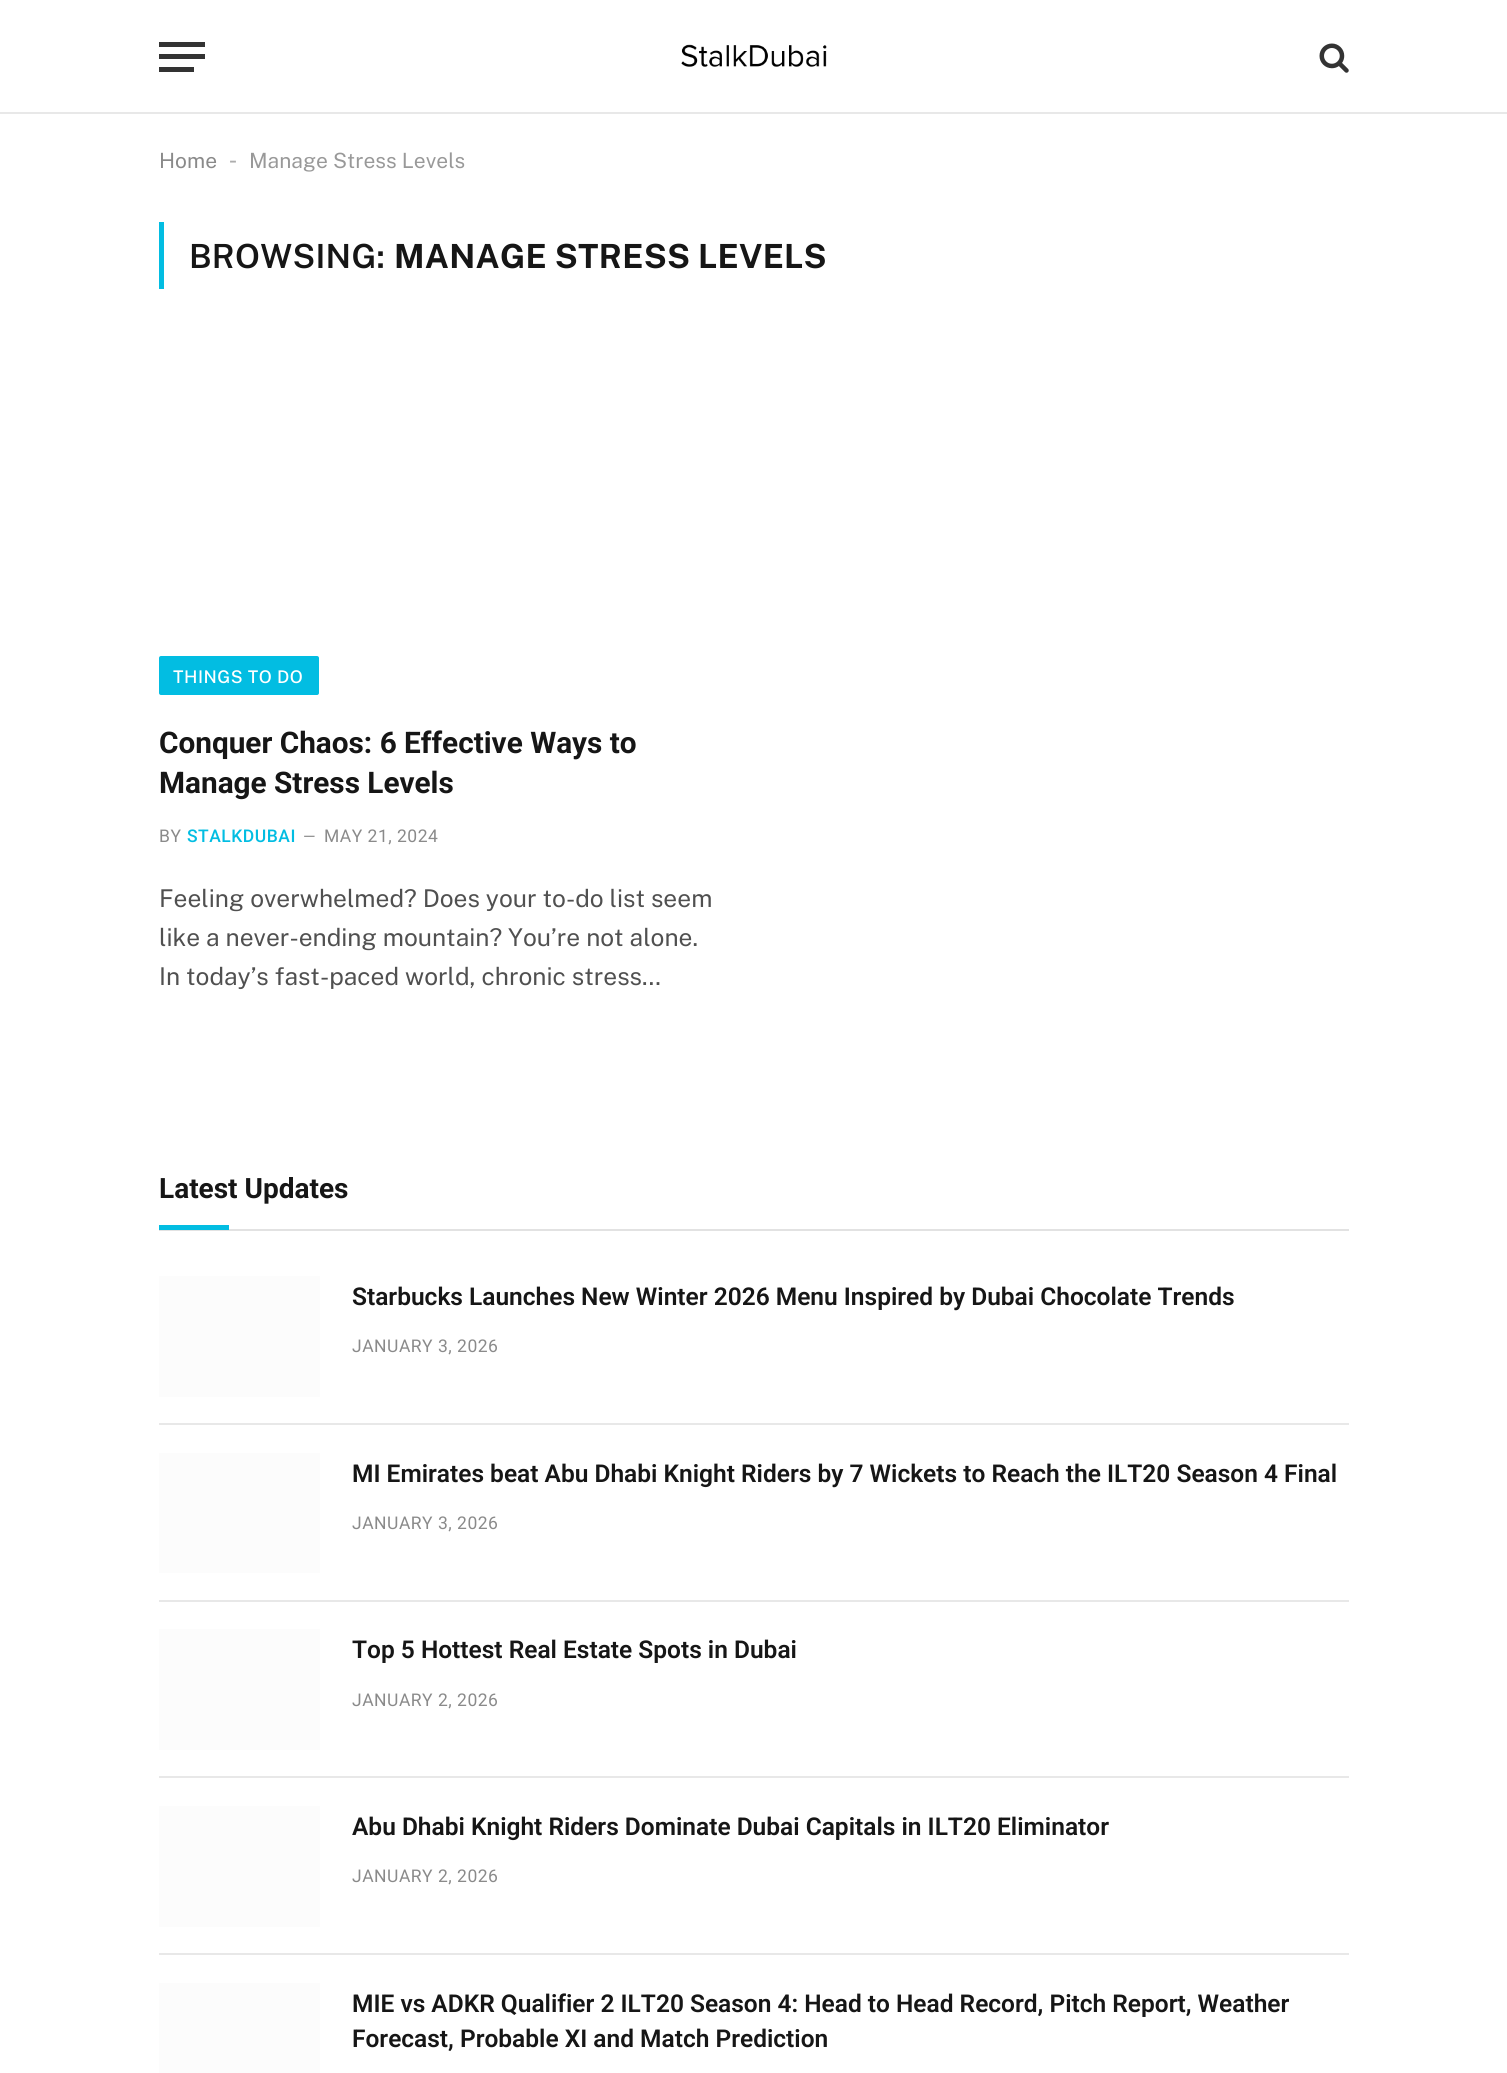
#include <cairo/cairo.h>
#include <math.h>
#include <stddef.h>

typedef struct { double x, y; const char *s; } line_t;
typedef struct { double x, y, w, h; unsigned color; } box_t;
static cairo_t *cr;

static void rgb(unsigned color)
{
	cairo_set_source_rgb(cr, (color >> 16) / 255.0, (color >> 8 & 255) / 255.0, (color & 255) / 255.0);
}

static void tracked(double x, double y, const char *s, double letter, double word)
{
	cairo_move_to(cr, x, y);
	while (*s) {
		char ch[5] = {0};
		int n = 0;
		do ch[n++] = *s++; while ((*s & 0xC0) == 0x80);
		cairo_show_text(cr, ch);
		cairo_rel_move_to(cr, letter + word * (*ch == ' '), 0);
	}
}

static void rrect(double x, double y, double w, double h, double r)
{
	cairo_new_sub_path(cr);
	cairo_arc(cr, x + w - r, y + h - r, r, 0, M_PI / 2);
	cairo_arc(cr, x + r, y + h - r, r, M_PI / 2, M_PI);
	cairo_arc(cr, x + r, y + r, r, M_PI, 1.5 * M_PI);
	cairo_arc(cr, x + w - r, y + r, r, 1.5 * M_PI, 2 * M_PI);
	cairo_close_path(cr);
}

static void image(const char *path, double x, double y, double w, double h)
{
	cairo_surface_t *image = cairo_image_surface_create_from_png(path);
	cairo_save(cr);
	cairo_set_source_surface(cr, image, x, y);
	cairo_rectangle(cr, x, y, w, h);
	cairo_fill(cr);
	cairo_restore(cr);
	cairo_surface_destroy(image);
}

int main(void) {
	cairo_surface_t *surface = cairo_image_surface_create(CAIRO_FORMAT_RGB24, 1507, 2073);
	cr = cairo_create(surface);
	cairo_font_options_t *options = cairo_font_options_create();
	cairo_font_options_set_hint_metrics(options, CAIRO_HINT_METRICS_OFF);
	cairo_font_options_set_hint_style(options, CAIRO_HINT_STYLE_NONE);
	cairo_set_font_options(cr, options);
	cairo_set_miter_limit(cr, 4);
	rgb(0xffffff);
	cairo_paint(cr);
	{
		static const box_t items[] = {
			{0, 112, 1507, 2, 0xe8e8e8},
			{159, 67, 35, 5, 0x333333},
			{159, 42, 46, 5, 0x333333},
			{159, 54, 46, 5, 0x333333},
		};
		for (size_t i = 0; i < sizeof items / sizeof *items; i++) {
			rgb(items[i].color);
			cairo_rectangle(cr, items[i].x, items[i].y, items[i].w, items[i].h);
			cairo_fill(cr);
		}
	}
	image("img/1.png", 681, 44, 146, 23);
	image("img/2.png", 1319, 43, 30, 30);
	rgb(0x02bde2);
	cairo_rectangle(cr, 159, 222, 5, 67);
	cairo_fill(cr);
	rrect(159, 656, 160, 39, 2);
	cairo_fill(cr);
	{
		static const box_t items[] = {
			{159, 1229, 1190, 2, 0xe2e2e2},
			{159, 1225, 70, 5, 0x02bde2},
			{159, 1276, 161, 121, 0xfcfcfc},
			{159, 1423, 1190, 2, 0xe8e8e8},
			{159, 1453, 161, 120, 0xfcfcfc},
			{159, 1600, 1190, 2, 0xe8e8e8},
			{159, 1629, 161, 121, 0xfcfcfc},
			{159, 1776, 1190, 2, 0xe8e8e8},
			{159, 1806, 161, 121, 0xfcfcfc},
			{159, 1953, 1190, 2, 0xe8e8e8},
			{159, 1983, 161, 90, 0xfcfcfc},
		};
		for (size_t i = 0; i < sizeof items / sizeof *items; i++) {
			rgb(items[i].color);
			cairo_rectangle(cr, items[i].x, items[i].y, items[i].w, items[i].h);
			cairo_fill(cr);
		}
	}
	cairo_select_font_face(cr, "Public Sans", CAIRO_FONT_SLANT_NORMAL, CAIRO_FONT_WEIGHT_NORMAL);
	cairo_set_font_size(cr, 21);
	rgb(0x8a8a8a);
	cairo_move_to(cr, 159, 168);
	cairo_show_text(cr, "Home");
	cairo_select_font_face(cr, "Liberation Sans", CAIRO_FONT_SLANT_NORMAL, CAIRO_FONT_WEIGHT_NORMAL);
	cairo_set_font_size(cr, 24);
	rgb(0xadadad);
	cairo_move_to(cr, 229, 168);
	cairo_show_text(cr, "-");
	cairo_select_font_face(cr, "Public Sans", CAIRO_FONT_SLANT_NORMAL, CAIRO_FONT_WEIGHT_NORMAL);
	cairo_set_font_size(cr, 21);
	rgb(0x999999);
	cairo_move_to(cr, 249, 168);
	cairo_show_text(cr, "Manage Stress Levels");
	cairo_select_font_face(cr, "Public Sans SemiBold", CAIRO_FONT_SLANT_NORMAL, CAIRO_FONT_WEIGHT_NORMAL);
	cairo_set_font_size(cr, 33.25);
	rgb(0x161616);
	tracked(189, 268, "BROWSING:", 0.3, 0);
	cairo_select_font_face(cr, "Public Sans", CAIRO_FONT_SLANT_NORMAL, CAIRO_FONT_WEIGHT_BOLD);
	tracked(394, 268, "MANAGE STRESS LEVELS", 0.3, 0);
	cairo_select_font_face(cr, "Public Sans Medium", CAIRO_FONT_SLANT_NORMAL, CAIRO_FONT_WEIGHT_NORMAL);
	cairo_set_font_size(cr, 17.5);
	rgb(0xffffff);
	tracked(173, 683, "THINGS TO DO", 0.5, 0);
	cairo_select_font_face(cr, "Roboto", CAIRO_FONT_SLANT_NORMAL, CAIRO_FONT_WEIGHT_BOLD);
	cairo_set_font_size(cr, 29.75);
	rgb(0x161616);
	cairo_move_to(cr, 159, 753);
	cairo_show_text(cr, "Conquer Chaos: 6 Effective Ways to");
	cairo_move_to(cr, 159, 793);
	cairo_show_text(cr, "Manage Stress Levels");
	cairo_select_font_face(cr, "Roboto", CAIRO_FONT_SLANT_NORMAL, CAIRO_FONT_WEIGHT_NORMAL);
	cairo_set_font_size(cr, 17.5);
	rgb(0x8a8a8a);
	tracked(159, 842, "BY", 0.5, 0);
	cairo_select_font_face(cr, "Roboto Medium", CAIRO_FONT_SLANT_NORMAL, CAIRO_FONT_WEIGHT_NORMAL);
	rgb(0x02bde2);
	tracked(187, 842, "STALKDUBAI", 0.5, 0);
	cairo_select_font_face(cr, "Roboto", CAIRO_FONT_SLANT_NORMAL, CAIRO_FONT_WEIGHT_NORMAL);
	cairo_set_font_size(cr, 16);
	rgb(0x8a8a8a);
	cairo_move_to(cr, 303, 842);
	cairo_show_text(cr, "—");
	cairo_set_font_size(cr, 17.5);
	tracked(324, 842, "MAY 21, 2024", 0.5, 0);
	cairo_select_font_face(cr, "Public Sans", CAIRO_FONT_SLANT_NORMAL, CAIRO_FONT_WEIGHT_NORMAL);
	cairo_set_font_size(cr, 24.5);
	rgb(0x505050);
	{
		static const line_t items[] = {
			{159, 907, "Feeling overwhelmed? Does your to-do list seem"},
			{159, 946, "like a never-ending mountain? You’re not alone."},
			{159, 985, "In today’s fast-paced world, chronic stress…"},
		};
		for (size_t i = 0; i < sizeof items / sizeof *items; i++) {
			cairo_move_to(cr, items[i].x, items[i].y);
			cairo_show_text(cr, items[i].s);
		}
	}
	cairo_select_font_face(cr, "Roboto", CAIRO_FONT_SLANT_NORMAL, CAIRO_FONT_WEIGHT_BOLD);
	cairo_set_font_size(cr, 28);
	rgb(0x161616);
	cairo_move_to(cr, 159, 1198);
	cairo_show_text(cr, "Latest Updates");
	cairo_select_font_face(cr, "Roboto SemiBold", CAIRO_FONT_SLANT_NORMAL, CAIRO_FONT_WEIGHT_NORMAL);
	cairo_set_font_size(cr, 24.5);
	cairo_move_to(cr, 352, 1305);
	cairo_show_text(cr, "Starbucks Launches New Winter 2026 Menu Inspired by Dubai Chocolate Trends");
	cairo_select_font_face(cr, "Roboto", CAIRO_FONT_SLANT_NORMAL, CAIRO_FONT_WEIGHT_NORMAL);
	cairo_set_font_size(cr, 17.5);
	rgb(0x8a8a8a);
	tracked(352, 1352, "JANUARY 3, 2026", 0.5, 0);
	cairo_select_font_face(cr, "Roboto SemiBold", CAIRO_FONT_SLANT_NORMAL, CAIRO_FONT_WEIGHT_NORMAL);
	cairo_set_font_size(cr, 24.5);
	rgb(0x161616);
	cairo_move_to(cr, 352, 1482);
	cairo_show_text(cr, "MI Emirates beat Abu Dhabi Knight Riders by 7 Wickets to Reach the ILT20 Season 4 Final");
	cairo_select_font_face(cr, "Roboto", CAIRO_FONT_SLANT_NORMAL, CAIRO_FONT_WEIGHT_NORMAL);
	cairo_set_font_size(cr, 17.5);
	rgb(0x8a8a8a);
	tracked(352, 1529, "JANUARY 3, 2026", 0.5, 0);
	cairo_select_font_face(cr, "Roboto SemiBold", CAIRO_FONT_SLANT_NORMAL, CAIRO_FONT_WEIGHT_NORMAL);
	cairo_set_font_size(cr, 24.5);
	rgb(0x161616);
	cairo_move_to(cr, 352, 1658);
	cairo_show_text(cr, "Top 5 Hottest Real Estate Spots in Dubai");
	cairo_select_font_face(cr, "Roboto", CAIRO_FONT_SLANT_NORMAL, CAIRO_FONT_WEIGHT_NORMAL);
	cairo_set_font_size(cr, 17.5);
	rgb(0x8a8a8a);
	tracked(352, 1706, "JANUARY 2, 2026", 0.5, 0);
	cairo_select_font_face(cr, "Roboto SemiBold", CAIRO_FONT_SLANT_NORMAL, CAIRO_FONT_WEIGHT_NORMAL);
	cairo_set_font_size(cr, 24.5);
	rgb(0x161616);
	cairo_move_to(cr, 352, 1835);
	cairo_show_text(cr, "Abu Dhabi Knight Riders Dominate Dubai Capitals in ILT20 Eliminator");
	cairo_select_font_face(cr, "Roboto", CAIRO_FONT_SLANT_NORMAL, CAIRO_FONT_WEIGHT_NORMAL);
	cairo_set_font_size(cr, 17.5);
	rgb(0x8a8a8a);
	tracked(352, 1882, "JANUARY 2, 2026", 0.5, 0);
	cairo_select_font_face(cr, "Roboto SemiBold", CAIRO_FONT_SLANT_NORMAL, CAIRO_FONT_WEIGHT_NORMAL);
	cairo_set_font_size(cr, 24.5);
	rgb(0x161616);
	cairo_move_to(cr, 352, 2012);
	cairo_show_text(cr, "MIE vs ADKR Qualifier 2 ILT20 Season 4: Head to Head Record, Pitch Report, Weather");
	cairo_move_to(cr, 352, 2047);
	cairo_show_text(cr, "Forecast, Probable XI and Match Prediction");
	cairo_surface_write_to_png(surface, "page.png");
	cairo_font_options_destroy(options);
	cairo_destroy(cr);
	cairo_surface_destroy(surface);
	return 0;
}
